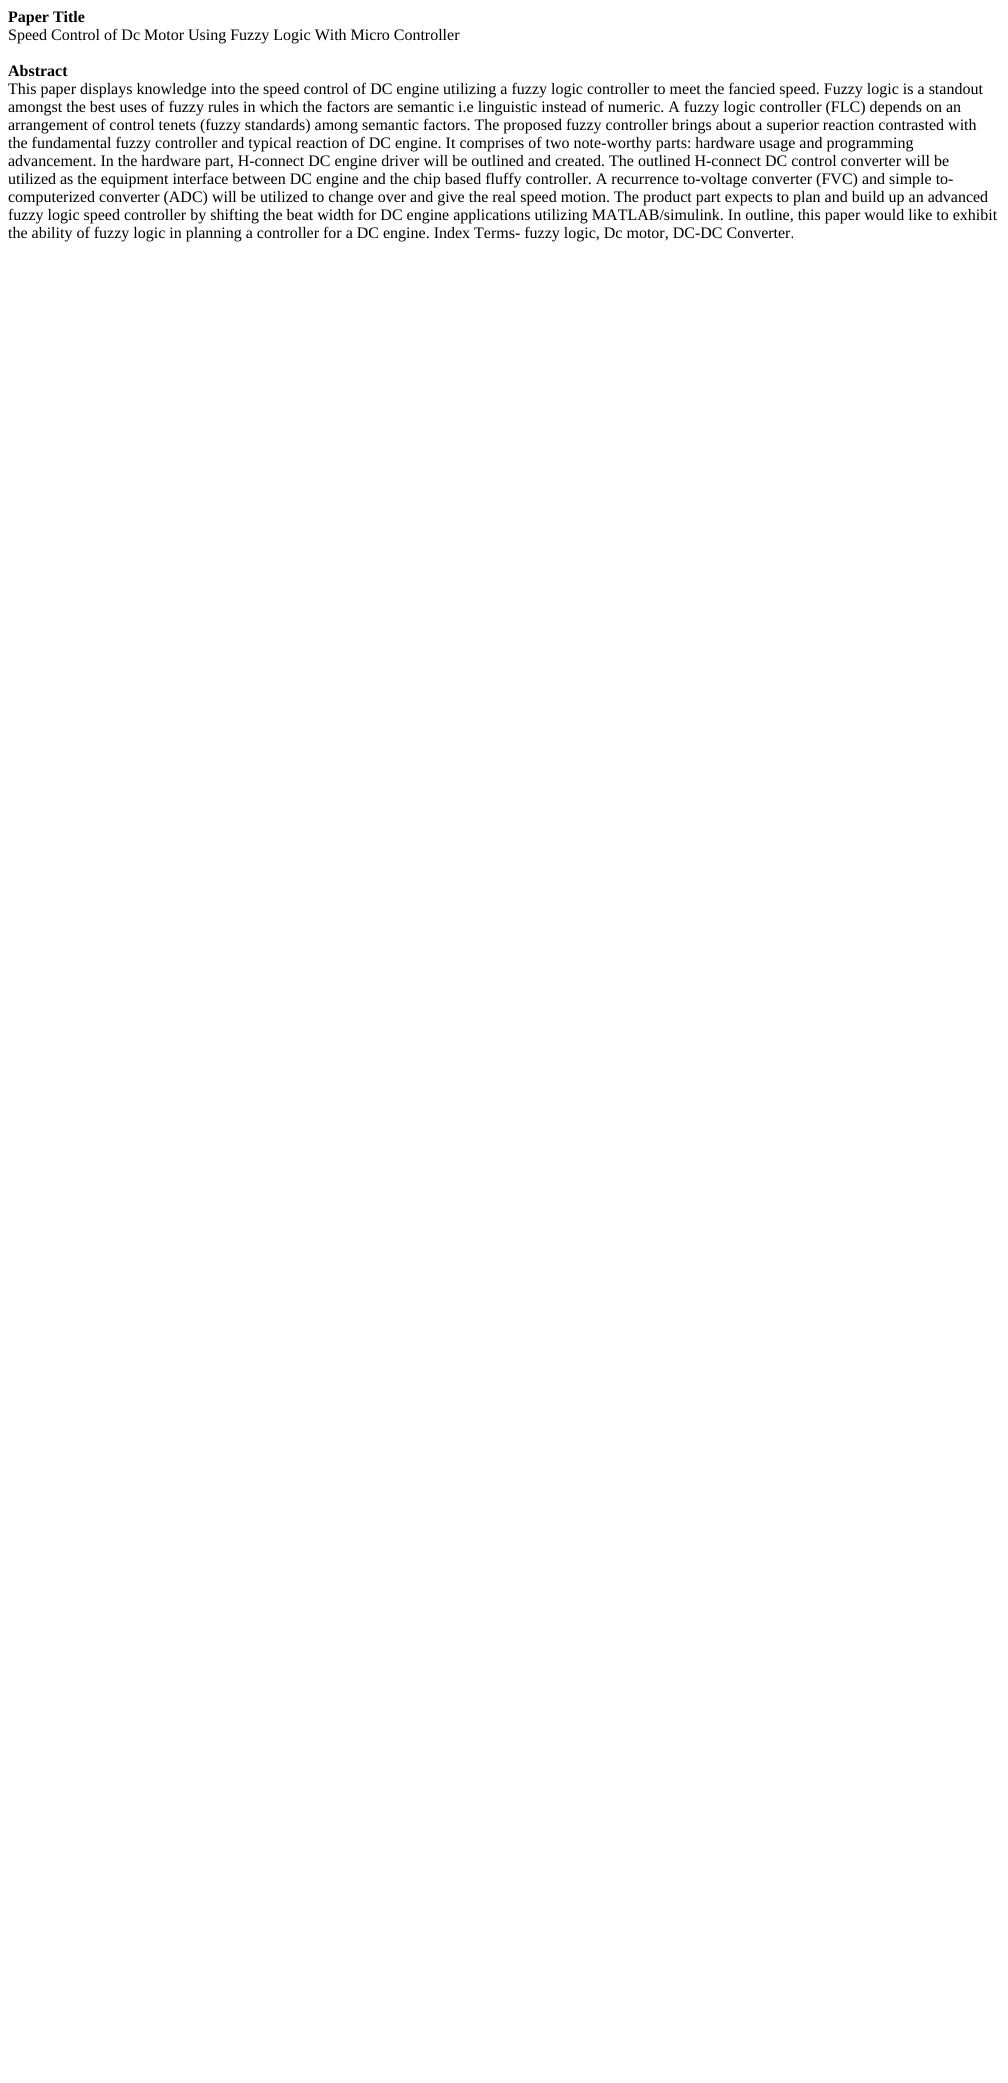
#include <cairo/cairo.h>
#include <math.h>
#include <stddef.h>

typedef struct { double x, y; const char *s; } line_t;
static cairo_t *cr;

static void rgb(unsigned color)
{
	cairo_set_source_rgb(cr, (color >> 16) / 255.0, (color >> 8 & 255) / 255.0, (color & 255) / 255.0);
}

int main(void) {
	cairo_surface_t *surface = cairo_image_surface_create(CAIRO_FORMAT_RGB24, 1008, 2083);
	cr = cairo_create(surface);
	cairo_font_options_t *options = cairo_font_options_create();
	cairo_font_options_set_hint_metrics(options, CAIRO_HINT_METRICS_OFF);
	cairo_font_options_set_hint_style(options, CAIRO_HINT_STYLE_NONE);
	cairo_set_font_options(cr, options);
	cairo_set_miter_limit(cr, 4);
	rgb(0xffffff);
	cairo_paint(cr);
	cairo_select_font_face(cr, "Liberation Serif", CAIRO_FONT_SLANT_NORMAL, CAIRO_FONT_WEIGHT_BOLD);
	cairo_set_font_size(cr, 16);
	rgb(0x000000);
	cairo_move_to(cr, 8, 22);
	cairo_show_text(cr, "Paper Title");
	cairo_select_font_face(cr, "Liberation Serif", CAIRO_FONT_SLANT_NORMAL, CAIRO_FONT_WEIGHT_NORMAL);
	cairo_move_to(cr, 8, 40);
	cairo_show_text(cr, "Speed Control of Dc Motor Using Fuzzy Logic With Micro Controller");
	cairo_select_font_face(cr, "Liberation Serif", CAIRO_FONT_SLANT_NORMAL, CAIRO_FONT_WEIGHT_BOLD);
	cairo_move_to(cr, 8, 76);
	cairo_show_text(cr, "Abstract");
	cairo_select_font_face(cr, "Liberation Serif", CAIRO_FONT_SLANT_NORMAL, CAIRO_FONT_WEIGHT_NORMAL);
	{
		static const line_t items[] = {
			{8, 94, "This paper displays knowledge into the speed control of DC engine utilizing a fuzzy logic controller to meet the fancied speed. Fuzzy logic is a standout"},
			{8, 112, "amongst the best uses of fuzzy rules in which the factors are semantic i.e linguistic instead of numeric. A fuzzy logic controller (FLC) depends on an"},
			{8, 130, "arrangement of control tenets (fuzzy standards) among semantic factors. The proposed fuzzy controller brings about a superior reaction contrasted with"},
			{8, 148, "the fundamental fuzzy controller and typical reaction of DC engine. It comprises of two note-worthy parts: hardware usage and programming"},
			{8, 166, "advancement. In the hardware part, H-connect DC engine driver will be outlined and created. The outlined H-connect DC control converter will be"},
			{8, 184, "utilized as the equipment interface between DC engine and the chip based fluffy controller. A recurrence to-voltage converter (FVC) and simple to-"},
			{8, 202, "computerized converter (ADC) will be utilized to change over and give the real speed motion. The product part expects to plan and build up an advanced"},
			{8, 220, "fuzzy logic speed controller by shifting the beat width for DC engine applications utilizing MATLAB/simulink. In outline, this paper would like to exhibit"},
			{8, 238, "the ability of fuzzy logic in planning a controller for a DC engine. Index Terms- fuzzy logic, Dc motor, DC-DC Converter."},
		};
		for (size_t i = 0; i < sizeof items / sizeof *items; i++) {
			cairo_move_to(cr, items[i].x, items[i].y);
			cairo_show_text(cr, items[i].s);
		}
	}
	cairo_surface_write_to_png(surface, "page.png");
	cairo_font_options_destroy(options);
	cairo_destroy(cr);
	cairo_surface_destroy(surface);
	return 0;
}
